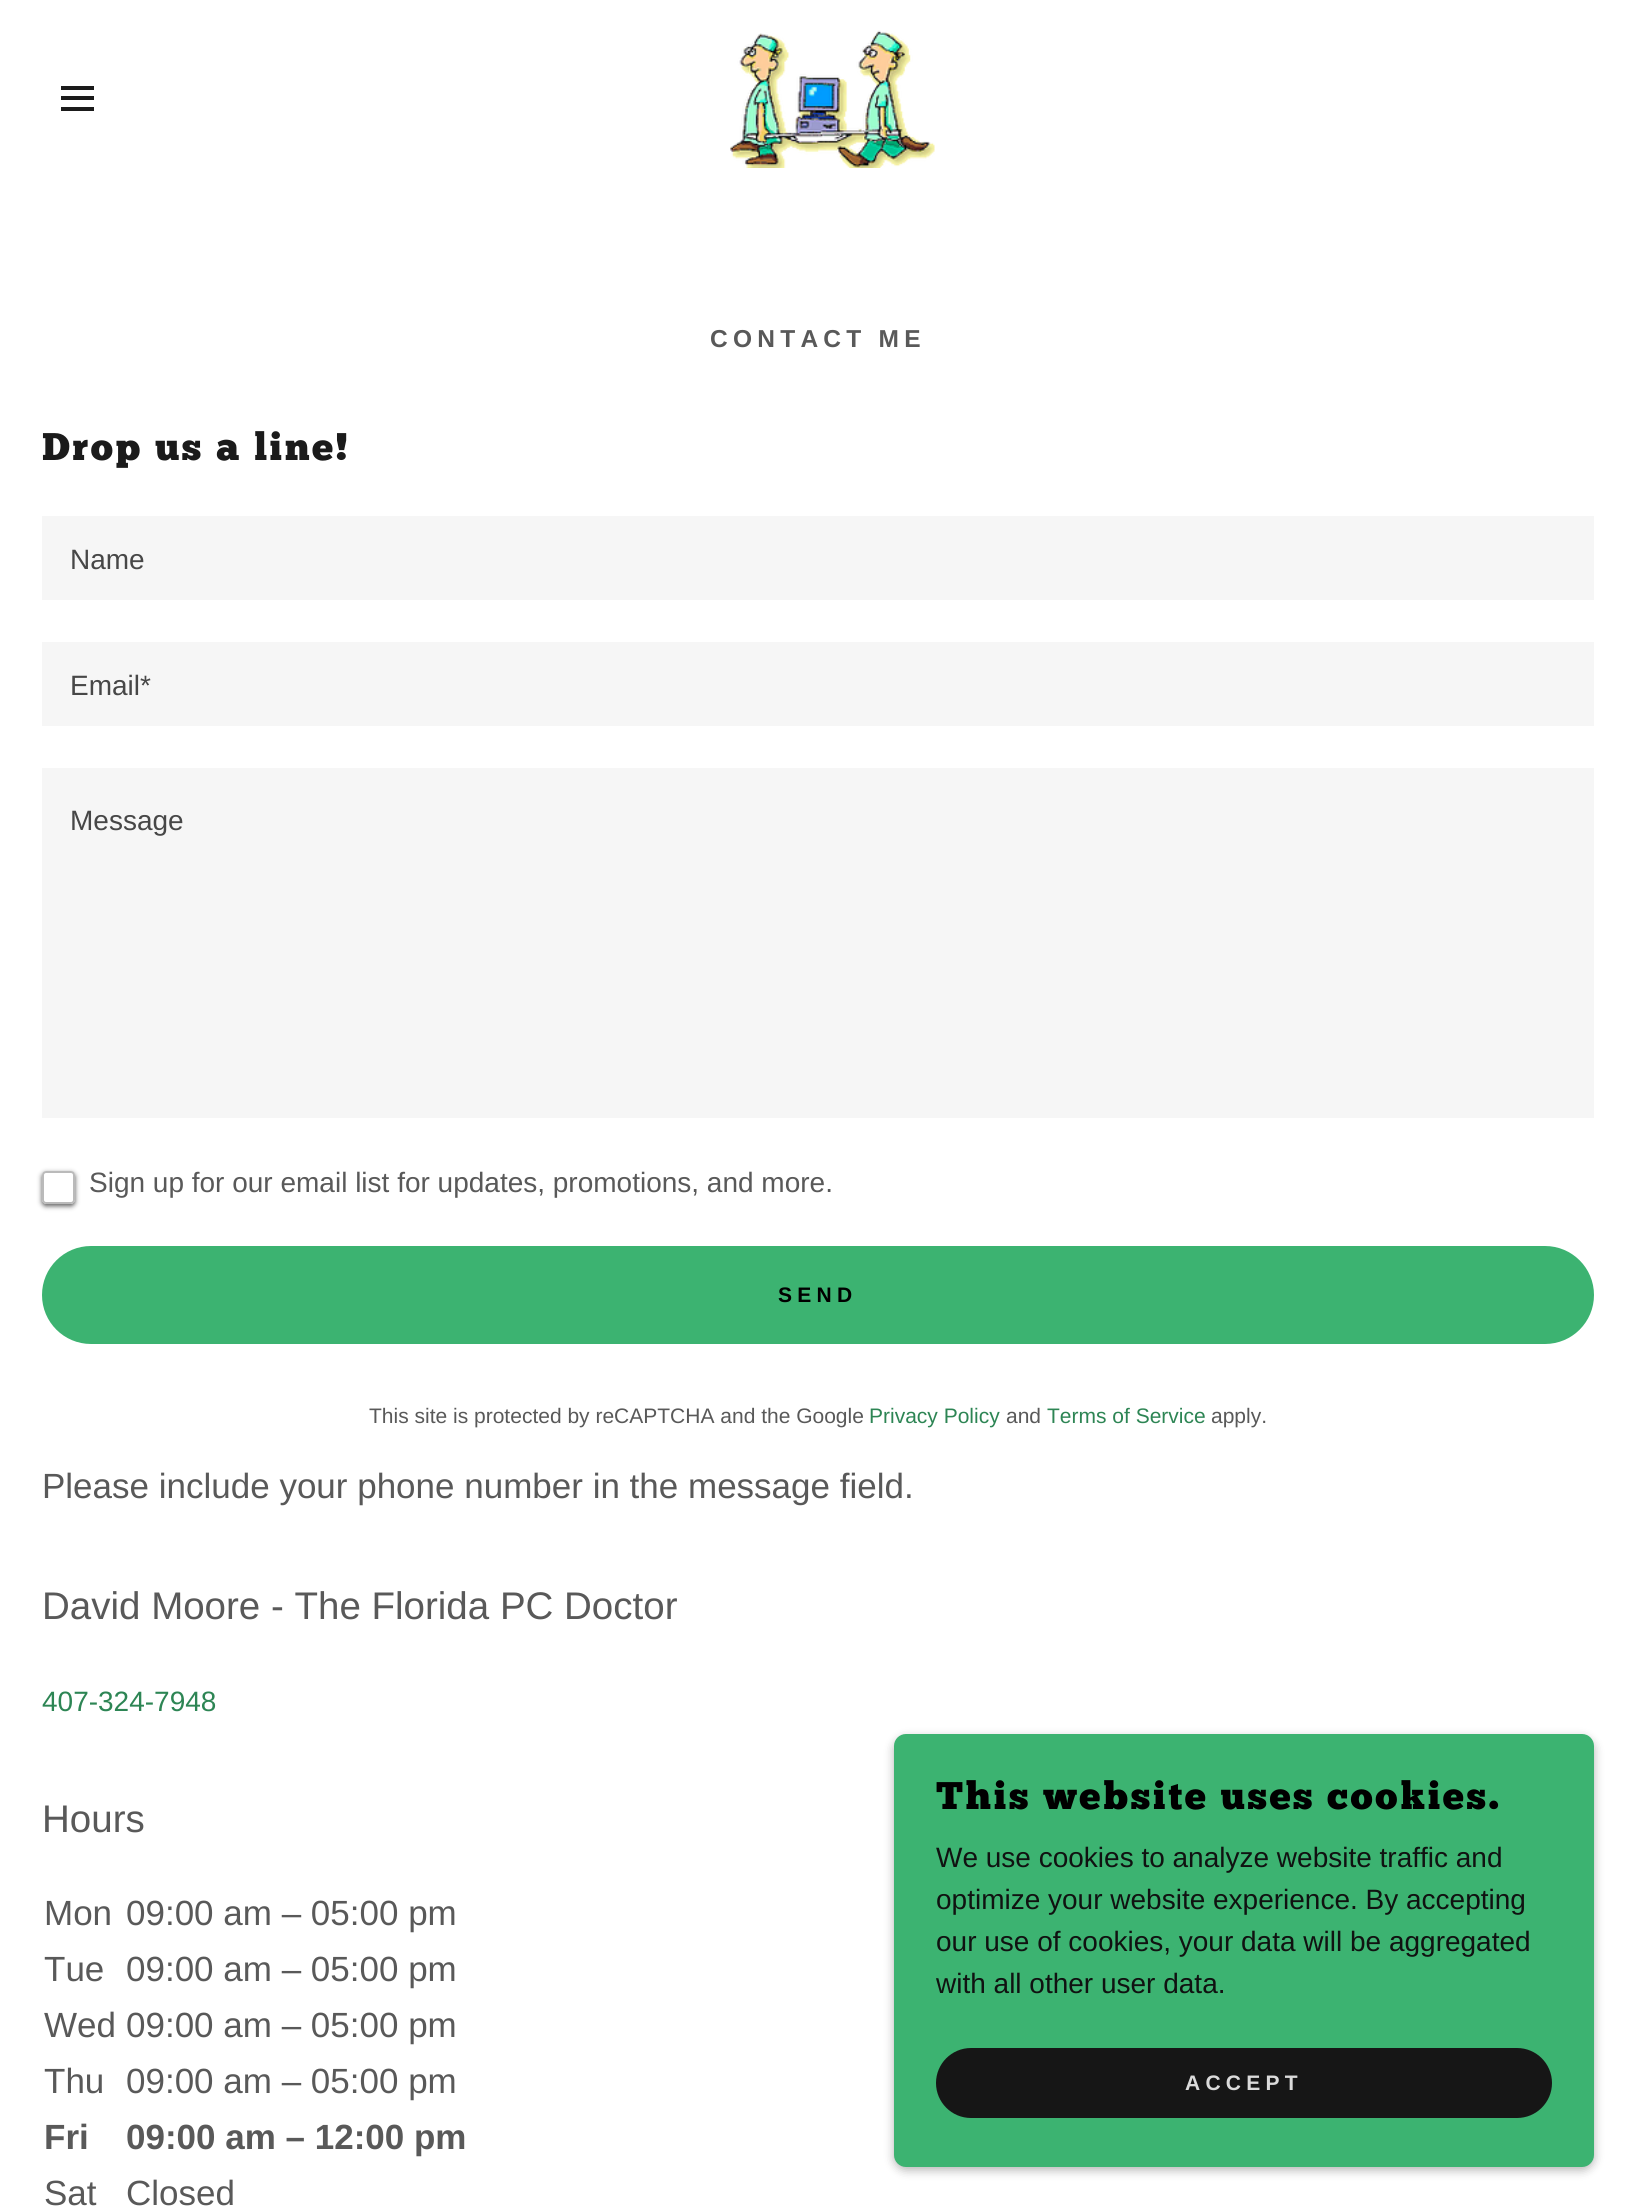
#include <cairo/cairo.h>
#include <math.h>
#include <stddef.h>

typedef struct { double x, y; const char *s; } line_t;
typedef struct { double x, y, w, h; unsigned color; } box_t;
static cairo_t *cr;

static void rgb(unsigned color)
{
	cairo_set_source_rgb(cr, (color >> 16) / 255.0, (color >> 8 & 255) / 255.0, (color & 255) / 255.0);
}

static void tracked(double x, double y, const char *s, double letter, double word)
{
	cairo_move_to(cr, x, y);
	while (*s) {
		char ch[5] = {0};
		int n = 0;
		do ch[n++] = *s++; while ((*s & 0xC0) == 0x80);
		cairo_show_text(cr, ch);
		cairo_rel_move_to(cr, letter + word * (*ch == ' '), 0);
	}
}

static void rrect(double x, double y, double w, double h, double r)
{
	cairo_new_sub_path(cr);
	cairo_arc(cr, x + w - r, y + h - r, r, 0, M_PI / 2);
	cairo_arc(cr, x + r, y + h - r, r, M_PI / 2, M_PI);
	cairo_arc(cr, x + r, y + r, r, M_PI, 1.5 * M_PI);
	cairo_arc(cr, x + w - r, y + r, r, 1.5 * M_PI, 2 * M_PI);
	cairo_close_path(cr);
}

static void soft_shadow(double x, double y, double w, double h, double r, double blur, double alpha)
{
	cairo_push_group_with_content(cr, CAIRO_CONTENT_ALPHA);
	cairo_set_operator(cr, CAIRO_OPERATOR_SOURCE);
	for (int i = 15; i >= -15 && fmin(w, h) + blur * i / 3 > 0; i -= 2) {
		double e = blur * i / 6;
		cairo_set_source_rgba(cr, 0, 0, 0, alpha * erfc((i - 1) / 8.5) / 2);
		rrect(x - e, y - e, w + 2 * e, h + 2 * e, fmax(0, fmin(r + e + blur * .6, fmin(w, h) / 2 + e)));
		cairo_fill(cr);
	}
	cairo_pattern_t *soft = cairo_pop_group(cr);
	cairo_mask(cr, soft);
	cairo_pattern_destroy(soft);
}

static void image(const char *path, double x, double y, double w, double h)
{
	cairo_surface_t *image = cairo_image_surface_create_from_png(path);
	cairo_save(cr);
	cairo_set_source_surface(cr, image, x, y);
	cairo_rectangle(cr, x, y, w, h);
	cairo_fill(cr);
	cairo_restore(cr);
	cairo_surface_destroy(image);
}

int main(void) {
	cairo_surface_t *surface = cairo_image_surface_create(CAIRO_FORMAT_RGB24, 1635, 2207);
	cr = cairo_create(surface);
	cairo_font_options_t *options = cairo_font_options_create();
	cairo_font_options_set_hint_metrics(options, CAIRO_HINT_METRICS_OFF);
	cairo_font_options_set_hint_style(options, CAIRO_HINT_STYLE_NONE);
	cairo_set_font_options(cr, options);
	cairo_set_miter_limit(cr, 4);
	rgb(0xffffff);
	cairo_paint(cr);
	{
		static const box_t items[] = {
			{61, 86, 33, 4, 0x1b1b1b},
			{61, 96, 33, 4, 0x1b1b1b},
			{61, 107, 33, 4, 0x1b1b1b},
		};
		for (size_t i = 0; i < sizeof items / sizeof *items; i++) {
			rgb(items[i].color);
			cairo_rectangle(cr, items[i].x, items[i].y, items[i].w, items[i].h);
			cairo_fill(cr);
		}
	}
	image("img/1.png", 730, 30, 205, 138);
	{
		static const box_t items[] = {
			{42, 516, 1552, 84, 0xf6f6f6},
			{42, 642, 1552, 84, 0xf6f6f6},
			{42, 768, 1552, 350, 0xf6f6f6},
		};
		for (size_t i = 0; i < sizeof items / sizeof *items; i++) {
			rgb(items[i].color);
			cairo_rectangle(cr, items[i].x, items[i].y, items[i].w, items[i].h);
			cairo_fill(cr);
		}
	}
	cairo_save(cr);
	cairo_set_fill_rule(cr, CAIRO_FILL_RULE_EVEN_ODD);
	cairo_new_path(cr);
	cairo_move_to(cr, 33, 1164);
	cairo_line_to(cr, 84, 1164);
	cairo_line_to(cr, 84, 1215);
	cairo_line_to(cr, 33, 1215);
	cairo_close_path(cr);
	cairo_move_to(cr, 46, 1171);
	cairo_line_to(cr, 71, 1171);
	cairo_curve_to(cr, 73, 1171, 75, 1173, 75, 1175);
	cairo_line_to(cr, 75, 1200);
	cairo_curve_to(cr, 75, 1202, 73, 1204, 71, 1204);
	cairo_line_to(cr, 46, 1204);
	cairo_curve_to(cr, 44, 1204, 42, 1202, 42, 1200);
	cairo_line_to(cr, 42, 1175);
	cairo_curve_to(cr, 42, 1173, 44, 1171, 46, 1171);
	cairo_close_path(cr);
	cairo_clip(cr);
	rgb(0x595959);
	soft_shadow(42, 1173, 33, 33, 4, 2.5, 1);
	cairo_restore(cr);
	rrect(43, 1172, 31, 31, 3);
	cairo_set_source_rgba(cr, 0.467, 0.467, 0.467, 0.5);
	cairo_stroke(cr);
	rgb(0x3cb371);
	rrect(42, 1246, 1552, 98, 49);
	cairo_fill(cr);
	rgb(0x000000);
	soft_shadow(894, 1738, 700, 432, 12, 5, 0.3);
	rgb(0x3cb371);
	rrect(894, 1734, 700, 433, 12);
	cairo_fill(cr);
	rgb(0x161616);
	rrect(936, 2048, 616, 70, 35);
	cairo_fill(cr);
	cairo_select_font_face(cr, "Liberation Sans", CAIRO_FONT_SLANT_NORMAL, CAIRO_FONT_WEIGHT_BOLD);
	cairo_set_font_size(cr, 24.5);
	rgb(0x595959);
	tracked(710, 347, "CONTACT ME", 5.25, 0);
	cairo_select_font_face(cr, "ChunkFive", CAIRO_FONT_SLANT_NORMAL, CAIRO_FONT_WEIGHT_NORMAL);
	cairo_set_font_size(cr, 38.5);
	rgb(0x1b1b1b);
	tracked(42, 460, "Drop us a line!", 2.6, 0);
	cairo_select_font_face(cr, "Liberation Sans", CAIRO_FONT_SLANT_NORMAL, CAIRO_FONT_WEIGHT_NORMAL);
	cairo_set_font_size(cr, 28);
	rgb(0x474747);
	{
		static const line_t items[] = {
			{70, 569, "Name"},
			{70, 695, "Email*"},
			{70, 830, "Message"},
		};
		for (size_t i = 0; i < sizeof items / sizeof *items; i++) {
			cairo_move_to(cr, items[i].x, items[i].y);
			cairo_show_text(cr, items[i].s);
		}
	}
	rgb(0x595959);
	cairo_move_to(cr, 89, 1192);
	cairo_show_text(cr, "Sign up for our email list for updates, promotions, and more.");
	cairo_select_font_face(cr, "Liberation Sans", CAIRO_FONT_SLANT_NORMAL, CAIRO_FONT_WEIGHT_BOLD);
	cairo_set_font_size(cr, 21);
	rgb(0x000000);
	tracked(778, 1302, "SEND", 5.25, 0);
	cairo_select_font_face(cr, "Liberation Sans", CAIRO_FONT_SLANT_NORMAL, CAIRO_FONT_WEIGHT_NORMAL);
	rgb(0x595959);
	cairo_move_to(cr, 369, 1423);
	cairo_show_text(cr, "This site is protected by reCAPTCHA and the Google");
	rgb(0x2d8554);
	cairo_move_to(cr, 869, 1423);
	cairo_show_text(cr, "Privacy Policy");
	rgb(0x595959);
	cairo_move_to(cr, 1006, 1423);
	cairo_show_text(cr, "and");
	rgb(0x2d8554);
	cairo_move_to(cr, 1047, 1423);
	cairo_show_text(cr, "Terms of Service");
	rgb(0x595959);
	cairo_move_to(cr, 1211, 1423);
	cairo_show_text(cr, "apply.");
	cairo_set_font_size(cr, 35);
	cairo_move_to(cr, 42, 1498);
	cairo_show_text(cr, "Please include your phone number in the message field.");
	cairo_set_font_size(cr, 38.5);
	cairo_move_to(cr, 42, 1619);
	cairo_show_text(cr, "David Moore - The Florida PC Doctor");
	cairo_set_font_size(cr, 28);
	rgb(0x2d8554);
	cairo_move_to(cr, 42, 1711);
	cairo_show_text(cr, "407-324-7948");
	cairo_set_font_size(cr, 38.5);
	rgb(0x595959);
	cairo_move_to(cr, 42, 1832);
	cairo_show_text(cr, "Hours");
	cairo_set_font_size(cr, 35);
	{
		static const line_t items[] = {
			{44, 1925, "Mon"},
			{126, 1925, "09:00 am – 05:00 pm"},
			{44, 1981, "Tue"},
			{126, 1981, "09:00 am – 05:00 pm"},
			{44, 2037, "Wed"},
			{126, 2037, "09:00 am – 05:00 pm"},
			{44, 2093, "Thu"},
			{126, 2093, "09:00 am – 05:00 pm"},
		};
		for (size_t i = 0; i < sizeof items / sizeof *items; i++) {
			cairo_move_to(cr, items[i].x, items[i].y);
			cairo_show_text(cr, items[i].s);
		}
	}
	cairo_select_font_face(cr, "Liberation Sans", CAIRO_FONT_SLANT_NORMAL, CAIRO_FONT_WEIGHT_BOLD);
	cairo_move_to(cr, 44, 2149);
	cairo_show_text(cr, "Fri");
	cairo_move_to(cr, 126, 2149);
	cairo_show_text(cr, "09:00 am – 12:00 pm");
	cairo_select_font_face(cr, "Liberation Sans", CAIRO_FONT_SLANT_NORMAL, CAIRO_FONT_WEIGHT_NORMAL);
	cairo_move_to(cr, 44, 2205);
	cairo_show_text(cr, "Sat");
	cairo_move_to(cr, 126, 2205);
	cairo_show_text(cr, "Closed");
	cairo_select_font_face(cr, "ChunkFive", CAIRO_FONT_SLANT_NORMAL, CAIRO_FONT_WEIGHT_NORMAL);
	cairo_set_font_size(cr, 38.5);
	rgb(0x000000);
	tracked(936, 1809, "This website uses cookies.", 2.6, 0);
	cairo_select_font_face(cr, "Liberation Sans", CAIRO_FONT_SLANT_NORMAL, CAIRO_FONT_WEIGHT_NORMAL);
	cairo_set_font_size(cr, 28);
	rgb(0x101211);
	{
		static const line_t items[] = {
			{936, 1867, "We use cookies to analyze website traffic and"},
			{936, 1909, "optimize your website experience. By accepting"},
			{936, 1951, "our use of cookies, your data will be aggregated"},
			{936, 1993, "with all other user data."},
		};
		for (size_t i = 0; i < sizeof items / sizeof *items; i++) {
			cairo_move_to(cr, items[i].x, items[i].y);
			cairo_show_text(cr, items[i].s);
		}
	}
	cairo_select_font_face(cr, "Liberation Sans", CAIRO_FONT_SLANT_NORMAL, CAIRO_FONT_WEIGHT_BOLD);
	cairo_set_font_size(cr, 21);
	rgb(0xdbdbdb);
	tracked(1185, 2090, "ACCEPT", 5.25, 0);
	cairo_surface_write_to_png(surface, "page.png");
	cairo_font_options_destroy(options);
	cairo_destroy(cr);
	cairo_surface_destroy(surface);
	return 0;
}
